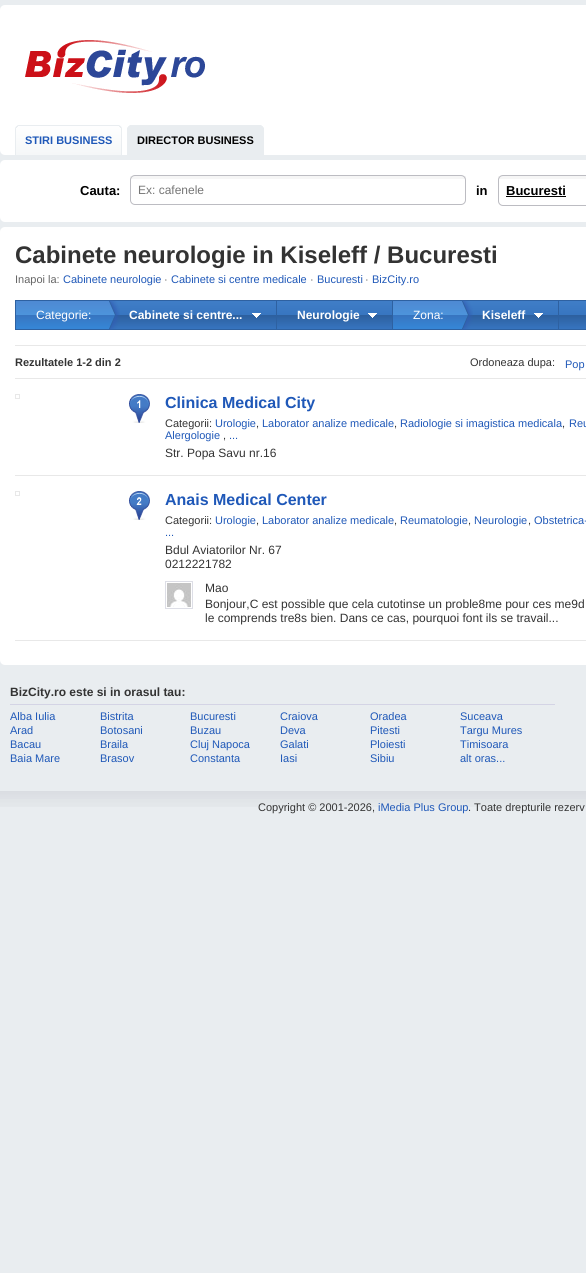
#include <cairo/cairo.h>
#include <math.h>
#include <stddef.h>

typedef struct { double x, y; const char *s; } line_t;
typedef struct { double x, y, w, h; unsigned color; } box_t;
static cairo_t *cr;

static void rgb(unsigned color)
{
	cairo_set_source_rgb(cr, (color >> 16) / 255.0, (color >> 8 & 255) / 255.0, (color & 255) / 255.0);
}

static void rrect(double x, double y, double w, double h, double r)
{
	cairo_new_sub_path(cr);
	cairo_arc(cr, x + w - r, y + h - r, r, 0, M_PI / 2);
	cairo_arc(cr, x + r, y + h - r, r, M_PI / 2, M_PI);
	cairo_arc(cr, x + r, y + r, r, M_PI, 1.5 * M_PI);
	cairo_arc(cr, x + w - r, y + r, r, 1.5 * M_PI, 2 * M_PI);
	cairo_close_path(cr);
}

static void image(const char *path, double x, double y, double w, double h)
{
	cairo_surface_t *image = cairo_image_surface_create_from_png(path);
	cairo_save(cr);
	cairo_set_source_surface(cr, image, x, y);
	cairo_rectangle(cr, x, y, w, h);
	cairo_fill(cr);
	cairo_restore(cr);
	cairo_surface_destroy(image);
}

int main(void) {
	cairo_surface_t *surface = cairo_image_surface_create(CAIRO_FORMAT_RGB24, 586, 1273);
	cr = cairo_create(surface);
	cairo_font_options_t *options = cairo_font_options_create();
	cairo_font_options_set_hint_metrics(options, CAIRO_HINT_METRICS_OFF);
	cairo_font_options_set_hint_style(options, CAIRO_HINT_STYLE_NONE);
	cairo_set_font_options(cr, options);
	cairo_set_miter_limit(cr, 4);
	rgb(0xe9edf0);
	cairo_paint(cr);
	rgb(0xffffff);
	rrect(0, 5, 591, 150, 5);
	cairo_fill(cr);
	image("img/1.png", 25, 40, 180, 53);
	image("img/2.png", 15, 125, 28, 30);
	image("img/3.png", 43, 125, 79, 30);
	image("img/4.png", 127, 125, 14, 30);
	image("img/5.png", 141, 125, 123, 30);
	rrect(0, 160, 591, 62, 5);
	cairo_fill(cr);
	rgb(0xf6f6f6);
	cairo_rectangle(cr, 130, 176, 336, 3);
	cairo_fill(cr);
	rrect(130.5, 175.5, 335, 29, 4.5);
	rgb(0xbcbcc2);
	cairo_set_line_width(cr, 1);
	cairo_stroke(cr);
	rgb(0xf6f6f6);
	cairo_rectangle(cr, 498, 176, 88, 3);
	cairo_fill(cr);
	rrect(498.5, 175.5, 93, 30, 4.5);
	rgb(0xbcbcc2);
	cairo_stroke(cr);
	rgb(0x000000);
	cairo_rectangle(cr, 506, 196, 60, 1);
	cairo_fill(cr);
	rgb(0xffffff);
	rrect(0, 227, 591, 438, 5);
	cairo_fill(cr);
	image("img/6.png", 109, 300, 477, 30);
	rgb(0x2e61a1);
	cairo_rectangle(cr, 15, 300, 1, 30);
	cairo_fill(cr);
	image("img/7.png", 16, 300, 104, 30);
	cairo_rectangle(cr, 276, 300, 1, 30);
	cairo_fill(cr);
	image("img/8.png", 252, 313, 9, 5);
	cairo_rectangle(cr, 392, 300, 1, 30);
	cairo_fill(cr);
	image("img/8.png", 368, 313, 9, 5);
	image("img/9.png", 393, 300, 80, 30);
	cairo_rectangle(cr, 558, 300, 1, 30);
	cairo_fill(cr);
	image("img/8.png", 534, 313, 9, 5);
	{
		static const box_t items[] = {
			{15, 345, 571, 1, 0xe8e8e8},
			{15, 378, 571, 1, 0xe8e8e8},
			{15, 475, 571, 1, 0xe8e8e8},
		};
		for (size_t i = 0; i < sizeof items / sizeof *items; i++) {
			rgb(items[i].color);
			cairo_rectangle(cr, items[i].x, items[i].y, items[i].w, items[i].h);
			cairo_fill(cr);
		}
	}
	cairo_rectangle(cr, 15.5, 394.5, 4, 4);
	cairo_stroke(cr);
	image("img/10.png", 129, 394, 21, 29);
	cairo_rectangle(cr, 15, 640, 571, 1);
	cairo_fill(cr);
	cairo_rectangle(cr, 15.5, 491.5, 4, 4);
	cairo_stroke(cr);
	image("img/11.png", 129, 491, 21, 29);
	cairo_rectangle(cr, 165.5, 581.5, 27, 27);
	rgb(0xdddee6);
	cairo_stroke(cr);
	image("img/12.png", 167, 583, 24, 24);
	rgb(0xd4d4e5);
	cairo_rectangle(cr, 10, 704, 545, 1);
	cairo_fill(cr);
	image("img/13.png", 0, 791, 586, 16);
	cairo_select_font_face(cr, "Liberation Sans", CAIRO_FONT_SLANT_NORMAL, CAIRO_FONT_WEIGHT_BOLD);
	cairo_set_font_size(cr, 11);
	rgb(0x1f58b8);
	cairo_move_to(cr, 25, 144);
	cairo_show_text(cr, "STIRI BUSINESS");
	rgb(0x000000);
	cairo_move_to(cr, 137, 144);
	cairo_show_text(cr, "DIRECTOR BUSINESS");
	cairo_set_font_size(cr, 13);
	cairo_move_to(cr, 80, 195);
	cairo_show_text(cr, "Cauta:");
	cairo_select_font_face(cr, "Liberation Sans", CAIRO_FONT_SLANT_NORMAL, CAIRO_FONT_WEIGHT_NORMAL);
	cairo_set_font_size(cr, 12);
	rgb(0x757575);
	cairo_move_to(cr, 138, 194);
	cairo_show_text(cr, "Ex: cafenele");
	cairo_select_font_face(cr, "Liberation Sans", CAIRO_FONT_SLANT_NORMAL, CAIRO_FONT_WEIGHT_BOLD);
	cairo_set_font_size(cr, 13);
	rgb(0x000000);
	cairo_move_to(cr, 476, 195);
	cairo_show_text(cr, "in");
	cairo_move_to(cr, 506, 195);
	cairo_show_text(cr, "Bucuresti");
	cairo_set_font_size(cr, 24);
	rgb(0x333333);
	cairo_move_to(cr, 15, 263);
	cairo_show_text(cr, "Cabinete neurologie in Kiseleff / Bucuresti");
	cairo_select_font_face(cr, "Liberation Sans", CAIRO_FONT_SLANT_NORMAL, CAIRO_FONT_WEIGHT_NORMAL);
	cairo_set_font_size(cr, 11);
	rgb(0x666666);
	cairo_move_to(cr, 15, 283);
	cairo_show_text(cr, "Inapoi la:");
	rgb(0x1f58b8);
	cairo_move_to(cr, 63, 283);
	cairo_show_text(cr, "Cabinete neurologie");
	rgb(0x666666);
	cairo_move_to(cr, 164, 283);
	cairo_show_text(cr, "·");
	rgb(0x1f58b8);
	cairo_move_to(cr, 171, 283);
	cairo_show_text(cr, "Cabinete si centre medicale");
	rgb(0x666666);
	cairo_move_to(cr, 310, 283);
	cairo_show_text(cr, "·");
	rgb(0x1f58b8);
	cairo_move_to(cr, 317, 283);
	cairo_show_text(cr, "Bucuresti");
	rgb(0x666666);
	cairo_move_to(cr, 365, 283);
	cairo_show_text(cr, "·");
	rgb(0x1f58b8);
	cairo_move_to(cr, 372, 283);
	cairo_show_text(cr, "BizCity.ro");
	cairo_set_font_size(cr, 12);
	rgb(0xffffff);
	cairo_move_to(cr, 36, 319);
	cairo_show_text(cr, "Categorie:");
	cairo_select_font_face(cr, "Liberation Sans", CAIRO_FONT_SLANT_NORMAL, CAIRO_FONT_WEIGHT_BOLD);
	cairo_move_to(cr, 129, 319);
	cairo_show_text(cr, "Cabinete si centre...");
	cairo_move_to(cr, 297, 319);
	cairo_show_text(cr, "Neurologie");
	cairo_select_font_face(cr, "Liberation Sans", CAIRO_FONT_SLANT_NORMAL, CAIRO_FONT_WEIGHT_NORMAL);
	cairo_move_to(cr, 413, 319);
	cairo_show_text(cr, "Zona:");
	cairo_select_font_face(cr, "Liberation Sans", CAIRO_FONT_SLANT_NORMAL, CAIRO_FONT_WEIGHT_BOLD);
	cairo_move_to(cr, 482, 319);
	cairo_show_text(cr, "Kiseleff");
	cairo_set_font_size(cr, 11);
	rgb(0x333333);
	cairo_move_to(cr, 15, 366);
	cairo_show_text(cr, "Rezultatele 1-2 din 2");
	cairo_select_font_face(cr, "Liberation Sans", CAIRO_FONT_SLANT_NORMAL, CAIRO_FONT_WEIGHT_NORMAL);
	cairo_move_to(cr, 470, 366);
	cairo_show_text(cr, "Ordoneaza dupa:");
	rgb(0x1f58b8);
	cairo_move_to(cr, 565, 368);
	cairo_show_text(cr, "Pop");
	cairo_select_font_face(cr, "Liberation Sans", CAIRO_FONT_SLANT_NORMAL, CAIRO_FONT_WEIGHT_BOLD);
	cairo_set_font_size(cr, 16);
	cairo_move_to(cr, 165, 408);
	cairo_show_text(cr, "Clinica Medical City");
	cairo_select_font_face(cr, "Liberation Sans", CAIRO_FONT_SLANT_NORMAL, CAIRO_FONT_WEIGHT_NORMAL);
	cairo_set_font_size(cr, 11);
	rgb(0x333333);
	cairo_move_to(cr, 165, 427);
	cairo_show_text(cr, "Categorii:");
	rgb(0x1f58b8);
	cairo_move_to(cr, 215, 427);
	cairo_show_text(cr, "Urologie");
	rgb(0x333333);
	cairo_move_to(cr, 256, 427);
	cairo_show_text(cr, ",");
	rgb(0x1f58b8);
	cairo_move_to(cr, 262, 427);
	cairo_show_text(cr, "Laborator analize medicale");
	rgb(0x333333);
	cairo_move_to(cr, 394, 427);
	cairo_show_text(cr, ",");
	rgb(0x1f58b8);
	cairo_move_to(cr, 400, 427);
	cairo_show_text(cr, "Radiologie si imagistica medicala");
	rgb(0x333333);
	cairo_move_to(cr, 562, 427);
	cairo_show_text(cr, ",");
	rgb(0x1f58b8);
	cairo_move_to(cr, 569, 427);
	cairo_show_text(cr, "Reu");
	cairo_move_to(cr, 165, 439);
	cairo_show_text(cr, "Alergologie");
	rgb(0x333333);
	cairo_move_to(cr, 223, 439);
	cairo_show_text(cr, ",");
	rgb(0x1f58b8);
	cairo_move_to(cr, 229, 439);
	cairo_show_text(cr, "...");
	cairo_set_font_size(cr, 12);
	rgb(0x333333);
	cairo_move_to(cr, 165, 457);
	cairo_show_text(cr, "Str. Popa Savu nr.16");
	cairo_select_font_face(cr, "Liberation Sans", CAIRO_FONT_SLANT_NORMAL, CAIRO_FONT_WEIGHT_BOLD);
	cairo_set_font_size(cr, 16);
	rgb(0x1f58b8);
	cairo_move_to(cr, 165, 505);
	cairo_show_text(cr, "Anais Medical Center");
	cairo_select_font_face(cr, "Liberation Sans", CAIRO_FONT_SLANT_NORMAL, CAIRO_FONT_WEIGHT_NORMAL);
	cairo_set_font_size(cr, 11);
	rgb(0x333333);
	cairo_move_to(cr, 165, 524);
	cairo_show_text(cr, "Categorii:");
	rgb(0x1f58b8);
	cairo_move_to(cr, 215, 524);
	cairo_show_text(cr, "Urologie");
	rgb(0x333333);
	cairo_move_to(cr, 256, 524);
	cairo_show_text(cr, ",");
	rgb(0x1f58b8);
	cairo_move_to(cr, 262, 524);
	cairo_show_text(cr, "Laborator analize medicale");
	rgb(0x333333);
	cairo_move_to(cr, 394, 524);
	cairo_show_text(cr, ",");
	rgb(0x1f58b8);
	cairo_move_to(cr, 400, 524);
	cairo_show_text(cr, "Reumatologie");
	rgb(0x333333);
	cairo_move_to(cr, 468, 524);
	cairo_show_text(cr, ",");
	rgb(0x1f58b8);
	cairo_move_to(cr, 474, 524);
	cairo_show_text(cr, "Neurologie");
	rgb(0x333333);
	cairo_move_to(cr, 528, 524);
	cairo_show_text(cr, ",");
	rgb(0x1f58b8);
	cairo_move_to(cr, 534, 524);
	cairo_show_text(cr, "Obstetrica-");
	cairo_move_to(cr, 165, 536);
	cairo_show_text(cr, "...");
	cairo_set_font_size(cr, 12);
	rgb(0x333333);
	{
		static const line_t items[] = {
			{165, 554, "Bdul Aviatorilor Nr. 67"},
			{165, 568, "0212221782"},
			{205, 592, "Mao"},
			{205, 608, "Bonjour,C est possible que cela cutotinse un proble8me pour ces me9d"},
			{205, 622, "le comprends tre8s bien. Dans ce cas, pourquoi font ils se travail..."},
		};
		for (size_t i = 0; i < sizeof items / sizeof *items; i++) {
			cairo_move_to(cr, items[i].x, items[i].y);
			cairo_show_text(cr, items[i].s);
		}
	}
	cairo_select_font_face(cr, "Liberation Sans", CAIRO_FONT_SLANT_NORMAL, CAIRO_FONT_WEIGHT_BOLD);
	cairo_move_to(cr, 10, 696);
	cairo_show_text(cr, "BizCity.ro este si in orasul tau:");
	cairo_select_font_face(cr, "Liberation Sans", CAIRO_FONT_SLANT_NORMAL, CAIRO_FONT_WEIGHT_NORMAL);
	cairo_set_font_size(cr, 11);
	rgb(0x1f58b8);
	{
		static const line_t items[] = {
			{10, 720, "Alba Iulia"},
			{10, 734, "Arad"},
			{10, 748, "Bacau"},
			{10, 762, "Baia Mare"},
			{100, 720, "Bistrita"},
			{100, 734, "Botosani"},
			{100, 748, "Braila"},
			{100, 762, "Brasov"},
			{190, 720, "Bucuresti"},
			{190, 734, "Buzau"},
			{190, 748, "Cluj Napoca"},
			{190, 762, "Constanta"},
			{280, 720, "Craiova"},
			{280, 734, "Deva"},
			{280, 748, "Galati"},
			{280, 762, "Iasi"},
			{370, 720, "Oradea"},
			{370, 734, "Pitesti"},
			{370, 748, "Ploiesti"},
			{370, 762, "Sibiu"},
			{460, 720, "Suceava"},
			{460, 734, "Targu Mures"},
			{460, 748, "Timisoara"},
			{460, 762, "alt oras..."},
		};
		for (size_t i = 0; i < sizeof items / sizeof *items; i++) {
			cairo_move_to(cr, items[i].x, items[i].y);
			cairo_show_text(cr, items[i].s);
		}
	}
	rgb(0x333333);
	cairo_move_to(cr, 258, 811);
	cairo_show_text(cr, "Copyright © 2001-2026,");
	rgb(0x1f58b8);
	cairo_move_to(cr, 378, 811);
	cairo_show_text(cr, "iMedia Plus Group");
	rgb(0x333333);
	cairo_move_to(cr, 468, 811);
	cairo_show_text(cr, ". Toate drepturile rezerv");
	cairo_surface_write_to_png(surface, "page.png");
	cairo_font_options_destroy(options);
	cairo_destroy(cr);
	cairo_surface_destroy(surface);
	return 0;
}
